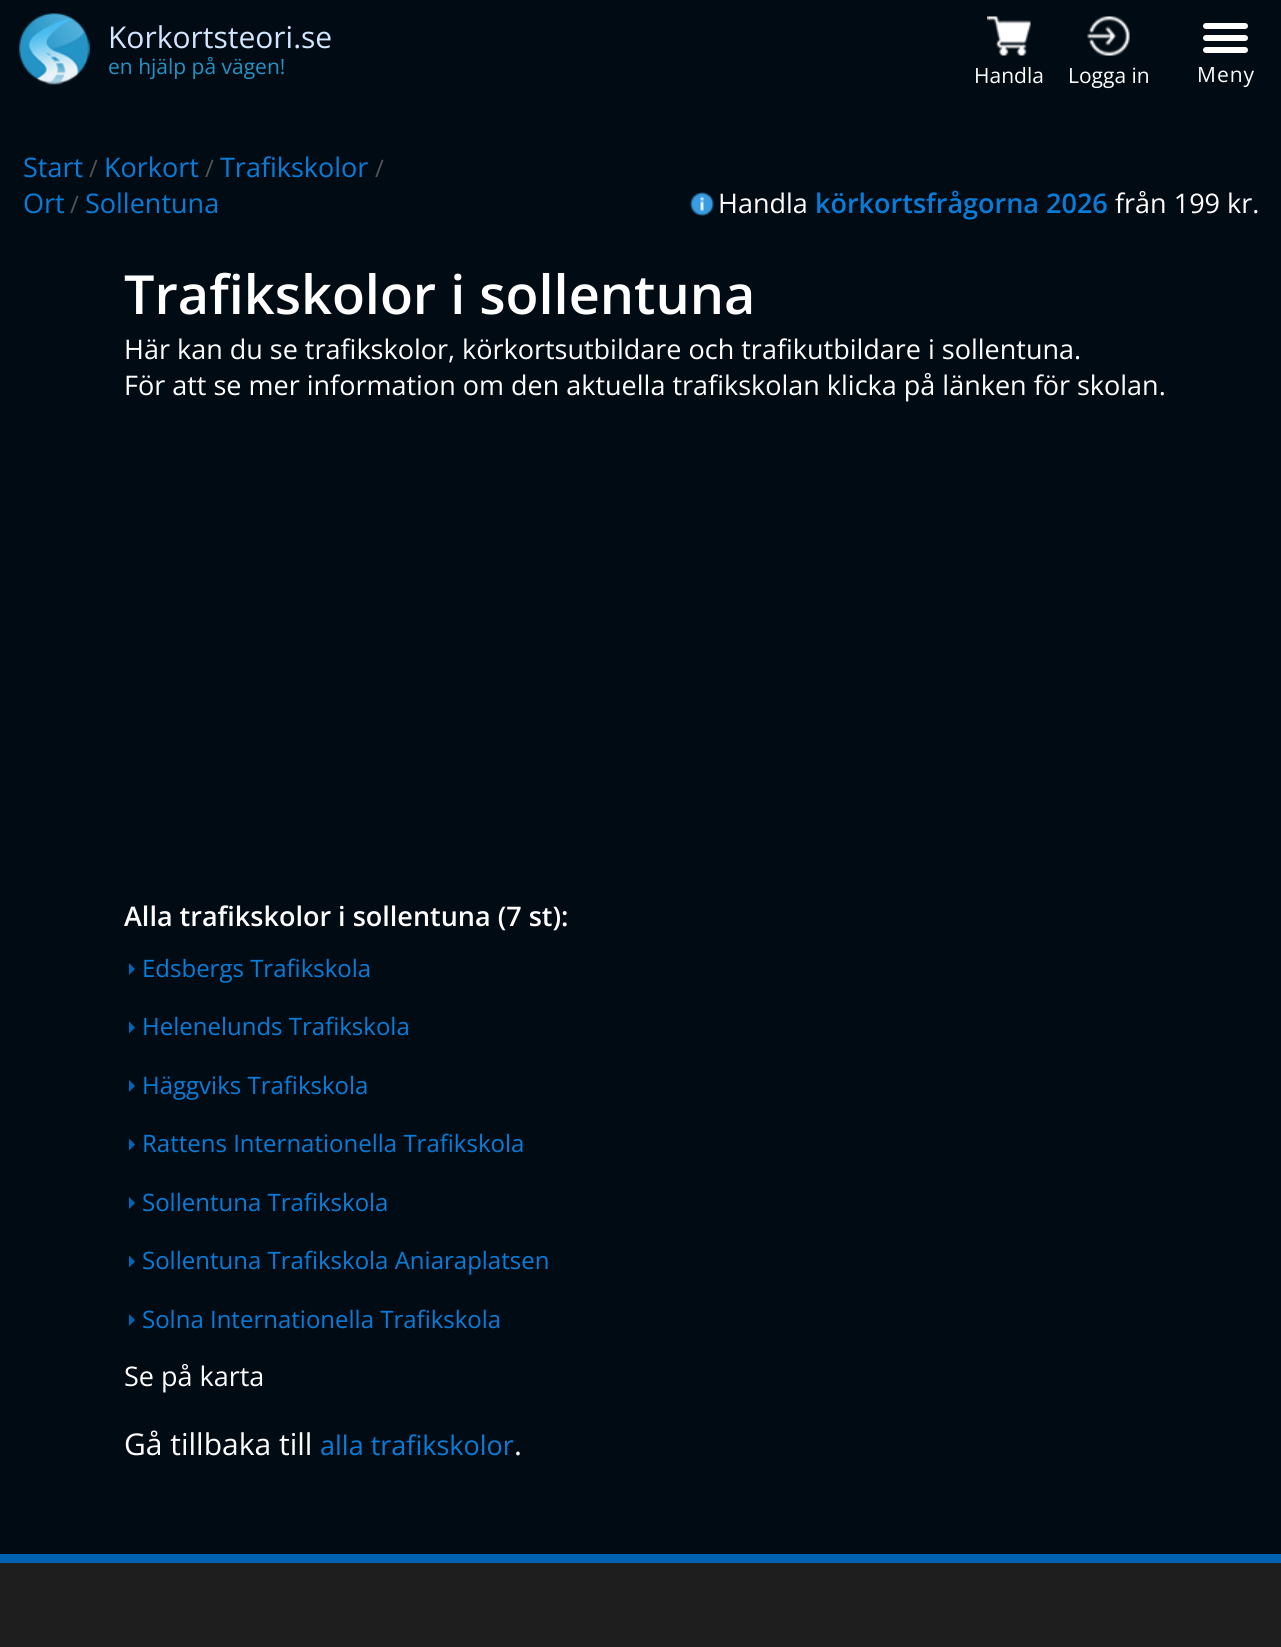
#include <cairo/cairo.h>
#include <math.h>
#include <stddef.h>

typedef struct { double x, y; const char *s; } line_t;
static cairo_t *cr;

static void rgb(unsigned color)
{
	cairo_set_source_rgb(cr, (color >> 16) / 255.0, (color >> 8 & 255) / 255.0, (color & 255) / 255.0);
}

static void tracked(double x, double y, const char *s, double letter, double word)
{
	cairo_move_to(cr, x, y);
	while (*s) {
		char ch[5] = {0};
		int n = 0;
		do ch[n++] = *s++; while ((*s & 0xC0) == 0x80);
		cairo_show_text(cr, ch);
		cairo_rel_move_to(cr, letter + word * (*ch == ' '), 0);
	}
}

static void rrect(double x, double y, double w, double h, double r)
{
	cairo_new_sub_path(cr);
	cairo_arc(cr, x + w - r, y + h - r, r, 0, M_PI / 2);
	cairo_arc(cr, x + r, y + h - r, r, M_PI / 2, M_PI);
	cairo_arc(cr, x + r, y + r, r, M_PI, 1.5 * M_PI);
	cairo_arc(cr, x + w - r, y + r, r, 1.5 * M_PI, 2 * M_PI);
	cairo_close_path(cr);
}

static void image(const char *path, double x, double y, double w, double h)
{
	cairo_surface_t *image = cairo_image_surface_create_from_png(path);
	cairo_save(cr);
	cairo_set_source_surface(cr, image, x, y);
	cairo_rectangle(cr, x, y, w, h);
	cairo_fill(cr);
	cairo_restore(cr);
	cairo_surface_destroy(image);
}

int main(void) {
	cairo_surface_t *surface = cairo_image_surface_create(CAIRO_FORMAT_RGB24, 1281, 1647);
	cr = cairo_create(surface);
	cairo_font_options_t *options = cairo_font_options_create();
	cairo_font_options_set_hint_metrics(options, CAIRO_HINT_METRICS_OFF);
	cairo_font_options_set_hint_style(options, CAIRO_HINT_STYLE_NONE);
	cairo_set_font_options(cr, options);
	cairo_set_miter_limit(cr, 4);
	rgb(0x010b14);
	cairo_paint(cr);
	image("img/1.png", 19, 13, 71, 72);
	image("img/2.png", 987, 16, 44, 40);
	image("img/3.png", 1087, 16, 43, 40);
	rgb(0xffffff);
	rrect(1203, 35, 45, 6, 3);
	cairo_fill(cr);
	rrect(1203, 23, 45, 6, 3);
	cairo_fill(cr);
	rrect(1203, 47, 45, 6, 3);
	cairo_fill(cr);
	image("img/4.png", 690, 192, 24, 24);
	rgb(0x0067b8);
	cairo_new_path(cr);
	cairo_move_to(cr, 129, 975);
	cairo_line_to(cr, 129, 963);
	cairo_line_to(cr, 135, 969);
	cairo_close_path(cr);
	cairo_fill(cr);
	cairo_new_path(cr);
	cairo_move_to(cr, 129, 1033.5);
	cairo_line_to(cr, 129, 1021.5);
	cairo_line_to(cr, 135, 1027.5);
	cairo_close_path(cr);
	cairo_fill(cr);
	cairo_new_path(cr);
	cairo_move_to(cr, 129, 1092);
	cairo_line_to(cr, 129, 1080);
	cairo_line_to(cr, 135, 1086);
	cairo_close_path(cr);
	cairo_fill(cr);
	cairo_new_path(cr);
	cairo_move_to(cr, 129, 1150.5);
	cairo_line_to(cr, 129, 1138.5);
	cairo_line_to(cr, 135, 1144.5);
	cairo_close_path(cr);
	cairo_fill(cr);
	cairo_new_path(cr);
	cairo_move_to(cr, 129, 1209);
	cairo_line_to(cr, 129, 1197);
	cairo_line_to(cr, 135, 1203);
	cairo_close_path(cr);
	cairo_fill(cr);
	cairo_new_path(cr);
	cairo_move_to(cr, 129, 1267.5);
	cairo_line_to(cr, 129, 1255.5);
	cairo_line_to(cr, 135, 1261.5);
	cairo_close_path(cr);
	cairo_fill(cr);
	cairo_new_path(cr);
	cairo_move_to(cr, 129, 1326);
	cairo_line_to(cr, 129, 1314);
	cairo_line_to(cr, 135, 1320);
	cairo_close_path(cr);
	cairo_fill(cr);
	rgb(0x1e1e1e);
	cairo_rectangle(cr, 0, 1563, 1281, 84);
	cairo_fill(cr);
	rgb(0x0063b1);
	cairo_rectangle(cr, 0, 1554, 1281, 9);
	cairo_fill(cr);
	cairo_select_font_face(cr, "Open Sans", CAIRO_FONT_SLANT_NORMAL, CAIRO_FONT_WEIGHT_NORMAL);
	cairo_set_font_size(cr, 30);
	rgb(0xd1e6ff);
	cairo_move_to(cr, 108, 48);
	cairo_show_text(cr, "Korkortsteori.se");
	cairo_set_font_size(cr, 21);
	rgb(0x2493c5);
	cairo_move_to(cr, 108, 74);
	cairo_show_text(cr, "en hjälp på vägen!");
	rgb(0xffffff);
	cairo_move_to(cr, 974, 83);
	cairo_show_text(cr, "Handla");
	cairo_move_to(cr, 1068, 83);
	cairo_show_text(cr, "Logga in");
	tracked(1197, 82, "Meny", 1, 0);
	cairo_set_font_size(cr, 27);
	rgb(0x077dd9);
	cairo_move_to(cr, 23, 177);
	cairo_show_text(cr, "Start");
	cairo_set_font_size(cr, 24);
	rgb(0x535353);
	cairo_move_to(cr, 89, 177);
	cairo_show_text(cr, "/");
	cairo_set_font_size(cr, 27);
	rgb(0x077dd9);
	cairo_move_to(cr, 104, 177);
	cairo_show_text(cr, "Korkort");
	cairo_set_font_size(cr, 24);
	rgb(0x535353);
	cairo_move_to(cr, 205, 177);
	cairo_show_text(cr, "/");
	cairo_set_font_size(cr, 27);
	rgb(0x077dd9);
	cairo_move_to(cr, 220, 177);
	cairo_show_text(cr, "Trafikskolor");
	cairo_set_font_size(cr, 24);
	rgb(0x535353);
	cairo_move_to(cr, 375, 177);
	cairo_show_text(cr, "/");
	cairo_set_font_size(cr, 27);
	rgb(0x077dd9);
	cairo_move_to(cr, 23, 213);
	cairo_show_text(cr, "Ort");
	cairo_set_font_size(cr, 24);
	rgb(0x535353);
	cairo_move_to(cr, 70, 213);
	cairo_show_text(cr, "/");
	cairo_set_font_size(cr, 27);
	rgb(0x077dd9);
	cairo_move_to(cr, 85, 213);
	cairo_show_text(cr, "Sollentuna");
	rgb(0xffffff);
	cairo_move_to(cr, 718, 213);
	cairo_show_text(cr, "Handla");
	cairo_select_font_face(cr, "Open Sans SemiBold", CAIRO_FONT_SLANT_NORMAL, CAIRO_FONT_WEIGHT_NORMAL);
	rgb(0x077dd9);
	cairo_move_to(cr, 815, 213);
	cairo_show_text(cr, "körkortsfrågorna 2026");
	cairo_select_font_face(cr, "Open Sans", CAIRO_FONT_SLANT_NORMAL, CAIRO_FONT_WEIGHT_NORMAL);
	rgb(0xffffff);
	cairo_move_to(cr, 1115, 213);
	cairo_show_text(cr, "från 199 kr.");
	cairo_select_font_face(cr, "Open Sans SemiBold", CAIRO_FONT_SLANT_NORMAL, CAIRO_FONT_WEIGHT_NORMAL);
	cairo_set_font_size(cr, 54);
	cairo_move_to(cr, 124, 314);
	cairo_show_text(cr, "Trafikskolor i sollentuna");
	cairo_select_font_face(cr, "Open Sans", CAIRO_FONT_SLANT_NORMAL, CAIRO_FONT_WEIGHT_NORMAL);
	cairo_set_font_size(cr, 27);
	cairo_move_to(cr, 124, 359);
	cairo_show_text(cr, "Här kan du se trafikskolor, körkortsutbildare och trafikutbildare i sollentuna.");
	cairo_move_to(cr, 124, 395);
	cairo_show_text(cr, "För att se mer information om den aktuella trafikskolan klicka på länken för skolan.");
	cairo_select_font_face(cr, "Open Sans SemiBold", CAIRO_FONT_SLANT_NORMAL, CAIRO_FONT_WEIGHT_NORMAL);
	cairo_move_to(cr, 124, 926);
	cairo_show_text(cr, "Alla trafikskolor i sollentuna (7 st):");
	cairo_select_font_face(cr, "Open Sans", CAIRO_FONT_SLANT_NORMAL, CAIRO_FONT_WEIGHT_NORMAL);
	cairo_set_font_size(cr, 24);
	rgb(0x077dd9);
	{
		static const line_t items[] = {
			{142, 977, "Edsbergs Trafikskola"},
			{142, 1035, "Helenelunds Trafikskola"},
			{142, 1094, "Häggviks Trafikskola"},
			{142, 1152, "Rattens Internationella Trafikskola"},
			{142, 1211, "Sollentuna Trafikskola"},
			{142, 1269, "Sollentuna Trafikskola Aniaraplatsen"},
			{142, 1328, "Solna Internationella Trafikskola"},
		};
		for (size_t i = 0; i < sizeof items / sizeof *items; i++) {
			cairo_move_to(cr, items[i].x, items[i].y);
			cairo_show_text(cr, items[i].s);
		}
	}
	cairo_set_font_size(cr, 27);
	rgb(0xffffff);
	cairo_move_to(cr, 124, 1386);
	cairo_show_text(cr, "Se på karta");
	cairo_set_font_size(cr, 30);
	cairo_move_to(cr, 124, 1455);
	cairo_show_text(cr, "Gå tillbaka till");
	cairo_set_font_size(cr, 27);
	rgb(0x077dd9);
	cairo_move_to(cr, 320, 1455);
	cairo_show_text(cr, "alla trafikskolor");
	cairo_set_font_size(cr, 30);
	rgb(0xffffff);
	cairo_move_to(cr, 514, 1455);
	cairo_show_text(cr, ".");
	cairo_surface_write_to_png(surface, "page.png");
	cairo_font_options_destroy(options);
	cairo_destroy(cr);
	cairo_surface_destroy(surface);
	return 0;
}
